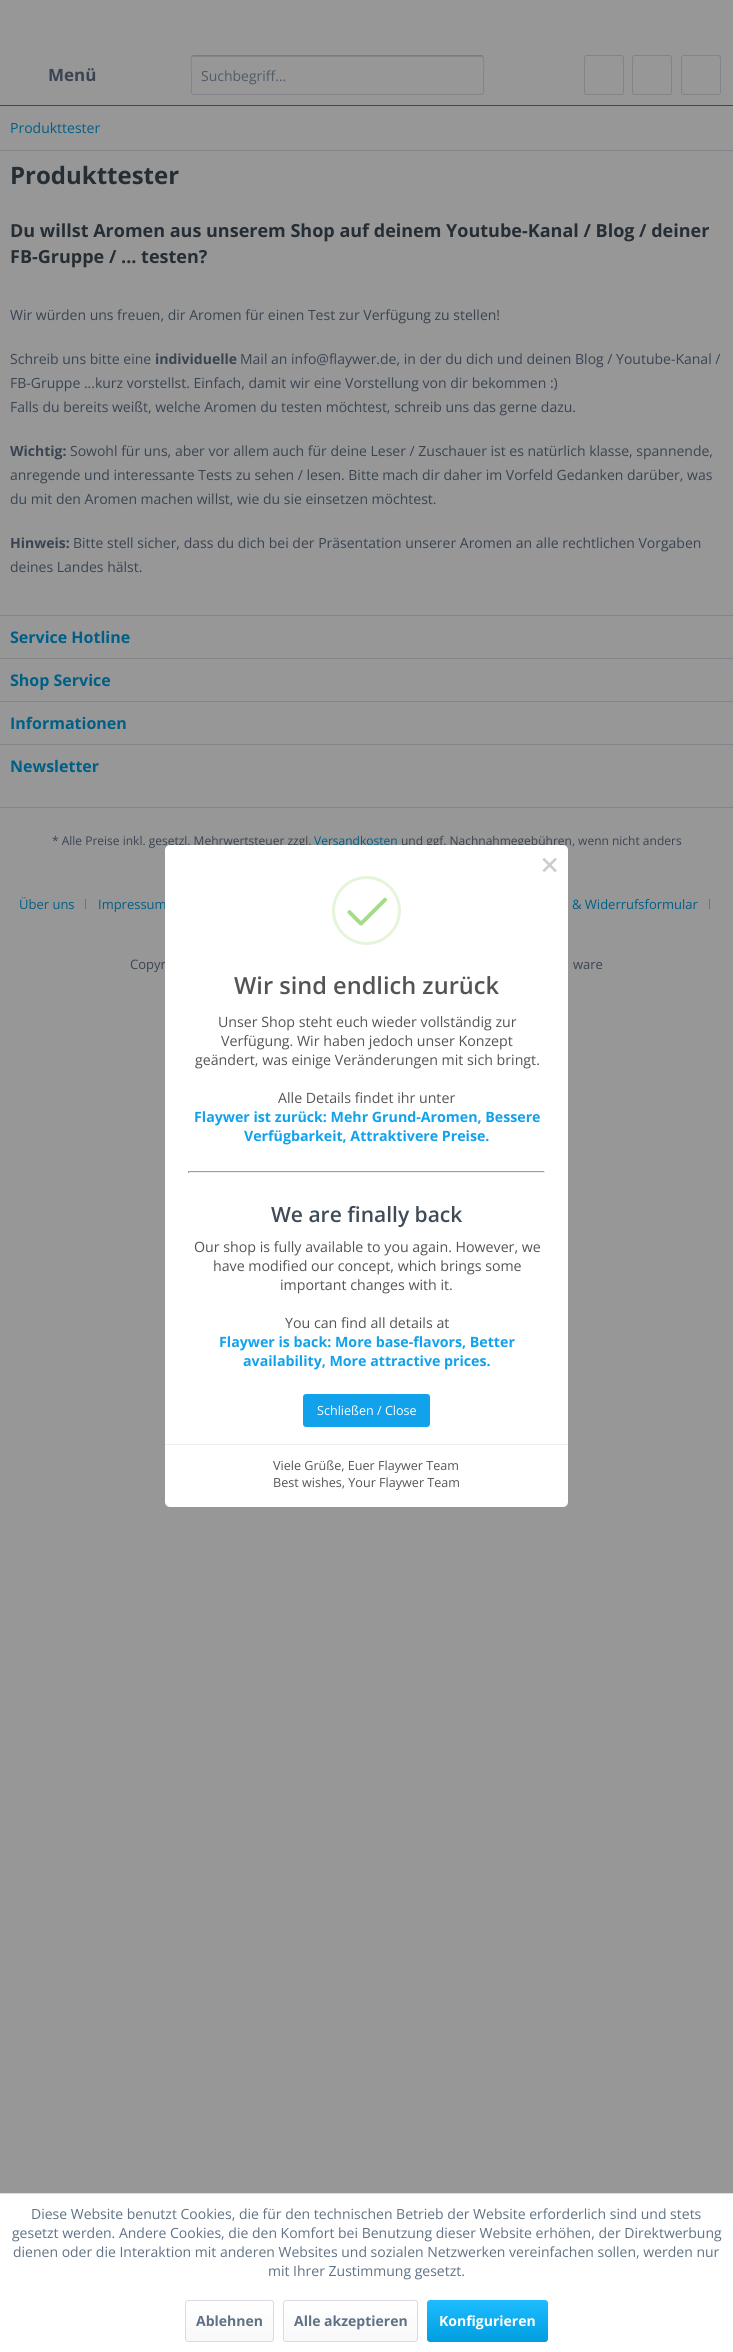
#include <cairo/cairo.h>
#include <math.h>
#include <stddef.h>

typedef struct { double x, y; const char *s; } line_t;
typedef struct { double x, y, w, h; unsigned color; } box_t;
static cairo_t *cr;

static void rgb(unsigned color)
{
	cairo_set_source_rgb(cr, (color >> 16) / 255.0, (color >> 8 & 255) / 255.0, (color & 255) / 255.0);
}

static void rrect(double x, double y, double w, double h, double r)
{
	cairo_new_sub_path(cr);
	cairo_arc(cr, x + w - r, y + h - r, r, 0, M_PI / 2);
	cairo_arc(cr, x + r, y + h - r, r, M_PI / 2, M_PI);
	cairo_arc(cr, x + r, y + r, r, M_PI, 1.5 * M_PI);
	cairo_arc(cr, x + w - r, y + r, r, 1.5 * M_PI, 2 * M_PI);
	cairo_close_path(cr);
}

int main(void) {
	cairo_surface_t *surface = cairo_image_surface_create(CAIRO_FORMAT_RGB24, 733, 2352);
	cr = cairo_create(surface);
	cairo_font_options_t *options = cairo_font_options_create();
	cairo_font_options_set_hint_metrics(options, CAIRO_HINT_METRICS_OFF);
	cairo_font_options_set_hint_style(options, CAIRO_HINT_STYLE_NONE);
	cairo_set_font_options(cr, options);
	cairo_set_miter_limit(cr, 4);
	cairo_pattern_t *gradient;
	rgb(0x979798);
	cairo_paint(cr);
	rgb(0x005f86);
	cairo_rectangle(cr, 0, 105, 733, 1);
	cairo_fill(cr);
	rgb(0x838389);
	cairo_new_path(cr);
	cairo_move_to(cr, 194, 57);
	cairo_line_to(cr, 481, 57);
	cairo_curve_to(cr, 482, 57, 483, 58, 483, 59);
	cairo_curve_to(cr, 483, 58, 483, 56, 481, 56);
	cairo_line_to(cr, 193, 56);
	cairo_line_to(cr, 192, 59);
	cairo_curve_to(cr, 192, 58, 193, 57, 194, 57);
	cairo_close_path(cr);
	cairo_fill(cr);
	cairo_new_path(cr);
	cairo_move_to(cr, 192, 56);
	cairo_line_to(cr, 194, 55.5);
	cairo_line_to(cr, 481, 55.5);
	cairo_line_to(cr, 483, 56);
	rgb(0x7a7a83);
	cairo_set_line_width(cr, 1);
	cairo_stroke(cr);
	cairo_new_path(cr);
	cairo_move_to(cr, 483, 56);
	cairo_curve_to(cr, 484.5, 58, 483.5, 72, 483.5, 75);
	cairo_line_to(cr, 483.5, 86.5);
	cairo_curve_to(cr, 483.5, 88, 485, 94.5, 481, 94.5);
	cairo_line_to(cr, 194, 94.5);
	cairo_curve_to(cr, 190, 94.5, 191.5, 88, 191.5, 86.5);
	cairo_line_to(cr, 191.5, 75);
	cairo_curve_to(cr, 191.5, 72, 190.5, 58, 192, 56);
	rgb(0x838389);
	cairo_stroke(cr);
	rrect(584.5, 55.5, 39, 39, 2.5);
	cairo_stroke(cr);
	rrect(632.5, 55.5, 39, 39, 2.5);
	cairo_stroke(cr);
	rrect(681.5, 55.5, 39, 39, 2.5);
	cairo_stroke(cr);
	{
		static const box_t items[] = {
			{0, 150, 733, 1, 0x838389},
			{0, 615, 733, 1, 0x838389},
			{0, 658, 733, 1, 0x838389},
			{0, 701, 733, 1, 0x838389},
			{0, 744, 733, 1, 0x838389},
			{0, 807, 733, 1, 0x838389},
			{85, 899, 1, 10, 0x71717d},
			{709, 899, 1, 10, 0x71717d},
			{0, 2194, 733, 158, 0xffffff},
			{0, 2193, 733, 1, 0xdadae5},
		};
		for (size_t i = 0; i < sizeof items / sizeof *items; i++) {
			rgb(items[i].color);
			cairo_rectangle(cr, items[i].x, items[i].y, items[i].w, items[i].h);
			cairo_fill(cr);
		}
	}
	gradient = cairo_pattern_create_linear(230, 2301, 230, 2341);
	cairo_pattern_add_color_stop_rgba(gradient, 0, 1, 1, 1, 1);
	cairo_pattern_add_color_stop_rgba(gradient, 1, 0.973, 0.973, 0.98, 1);
	cairo_set_source(cr, gradient);
	cairo_pattern_destroy(gradient);
	rrect(186, 2301, 87, 40, 2);
	cairo_fill(cr);
	rrect(185.5, 2300.5, 88, 41, 2.5);
	rgb(0xdadae5);
	cairo_stroke(cr);
	gradient = cairo_pattern_create_linear(351, 2301, 351, 2341);
	cairo_pattern_add_color_stop_rgba(gradient, 0, 1, 1, 1, 1);
	cairo_pattern_add_color_stop_rgba(gradient, 1, 0.973, 0.973, 0.98, 1);
	cairo_set_source(cr, gradient);
	cairo_pattern_destroy(gradient);
	rrect(284, 2301, 133, 40, 2);
	cairo_fill(cr);
	rrect(283.5, 2300.5, 134, 41, 2.5);
	rgb(0xdadae5);
	cairo_stroke(cr);
	gradient = cairo_pattern_create_linear(488, 2300, 488, 2342);
	cairo_pattern_add_color_stop_rgba(gradient, 0, 0.118, 0.741, 1, 1);
	cairo_pattern_add_color_stop_rgba(gradient, 1, 0, 0.62, 0.878, 1);
	cairo_set_source(cr, gradient);
	cairo_pattern_destroy(gradient);
	rrect(427, 2300, 121, 42, 3);
	cairo_fill(cr);
	cairo_select_font_face(cr, "Open Sans", CAIRO_FONT_SLANT_NORMAL, CAIRO_FONT_WEIGHT_BOLD);
	cairo_set_font_size(cr, 17);
	rgb(0x394450);
	cairo_move_to(cr, 48, 81);
	cairo_show_text(cr, "Menü");
	cairo_select_font_face(cr, "Open Sans", CAIRO_FONT_SLANT_NORMAL, CAIRO_FONT_WEIGHT_NORMAL);
	cairo_set_font_size(cr, 14);
	rgb(0x515b65);
	cairo_move_to(cr, 201, 81);
	cairo_show_text(cr, "Suchbegriff...");
	rgb(0x005f86);
	cairo_move_to(cr, 10, 133);
	cairo_show_text(cr, "Produkttester");
	cairo_select_font_face(cr, "Open Sans", CAIRO_FONT_SLANT_NORMAL, CAIRO_FONT_WEIGHT_BOLD);
	cairo_set_font_size(cr, 24);
	rgb(0x262e35);
	cairo_move_to(cr, 10, 184);
	cairo_show_text(cr, "Produkttester");
	cairo_set_font_size(cr, 18);
	cairo_move_to(cr, 10, 237);
	cairo_show_text(cr, "Du willst Aromen aus unserem Shop auf deinem Youtube-Kanal / Blog / deiner");
	cairo_move_to(cr, 10, 263);
	cairo_show_text(cr, "FB-Gruppe / ... testen?");
	cairo_select_font_face(cr, "Open Sans", CAIRO_FONT_SLANT_NORMAL, CAIRO_FONT_WEIGHT_NORMAL);
	cairo_set_font_size(cr, 14);
	rgb(0x394450);
	cairo_move_to(cr, 10, 320);
	cairo_show_text(cr, "Wir würden uns freuen, dir Aromen für einen Test zur Verfügung zu stellen!");
	cairo_move_to(cr, 10, 364);
	cairo_show_text(cr, "Schreib uns bitte eine");
	cairo_select_font_face(cr, "Open Sans", CAIRO_FONT_SLANT_NORMAL, CAIRO_FONT_WEIGHT_BOLD);
	cairo_move_to(cr, 155, 364);
	cairo_show_text(cr, "individuelle");
	cairo_select_font_face(cr, "Open Sans", CAIRO_FONT_SLANT_NORMAL, CAIRO_FONT_WEIGHT_NORMAL);
	{
		static const line_t items[] = {
			{240, 364, "Mail an info@flaywer.de, in der du dich und deinen Blog / Youtube-Kanal /"},
			{10, 388, "FB-Gruppe ...kurz vorstellst. Einfach, damit wir eine Vorstellung von dir bekommen :)"},
			{10, 412, "Falls du bereits weißt, welche Aromen du testen möchtest, schreib uns das gerne dazu."},
		};
		for (size_t i = 0; i < sizeof items / sizeof *items; i++) {
			cairo_move_to(cr, items[i].x, items[i].y);
			cairo_show_text(cr, items[i].s);
		}
	}
	cairo_select_font_face(cr, "Open Sans", CAIRO_FONT_SLANT_NORMAL, CAIRO_FONT_WEIGHT_BOLD);
	cairo_move_to(cr, 10, 456);
	cairo_show_text(cr, "Wichtig:");
	cairo_select_font_face(cr, "Open Sans", CAIRO_FONT_SLANT_NORMAL, CAIRO_FONT_WEIGHT_NORMAL);
	{
		static const line_t items[] = {
			{70, 456, "Sowohl für uns, aber vor allem auch für deine Leser / Zuschauer ist es natürlich klasse, spannende,"},
			{10, 480, "anregende und interessante Tests zu sehen / lesen. Bitte mach dir daher im Vorfeld Gedanken darüber, was"},
			{10, 504, "du mit den Aromen machen willst, wie du sie einsetzen möchtest."},
		};
		for (size_t i = 0; i < sizeof items / sizeof *items; i++) {
			cairo_move_to(cr, items[i].x, items[i].y);
			cairo_show_text(cr, items[i].s);
		}
	}
	cairo_select_font_face(cr, "Open Sans", CAIRO_FONT_SLANT_NORMAL, CAIRO_FONT_WEIGHT_BOLD);
	cairo_move_to(cr, 10, 548);
	cairo_show_text(cr, "Hinweis:");
	cairo_select_font_face(cr, "Open Sans", CAIRO_FONT_SLANT_NORMAL, CAIRO_FONT_WEIGHT_NORMAL);
	cairo_move_to(cr, 73, 548);
	cairo_show_text(cr, "Bitte stell sicher, dass du dich bei der Präsentation unserer Aromen an alle rechtlichen Vorgaben");
	cairo_move_to(cr, 10, 572);
	cairo_show_text(cr, "deines Landes hälst.");
	cairo_select_font_face(cr, "Open Sans", CAIRO_FONT_SLANT_NORMAL, CAIRO_FONT_WEIGHT_BOLD);
	cairo_set_font_size(cr, 16);
	rgb(0x005f86);
	{
		static const line_t items[] = {
			{10, 643, "Service Hotline"},
			{10, 686, "Shop Service"},
			{10, 729, "Informationen"},
			{10, 772, "Newsletter"},
		};
		for (size_t i = 0; i < sizeof items / sizeof *items; i++) {
			cairo_move_to(cr, items[i].x, items[i].y);
			cairo_show_text(cr, items[i].s);
		}
	}
	cairo_select_font_face(cr, "Open Sans", CAIRO_FONT_SLANT_NORMAL, CAIRO_FONT_WEIGHT_NORMAL);
	cairo_set_font_size(cr, 12);
	rgb(0x394450);
	cairo_move_to(cr, 52, 845);
	cairo_show_text(cr, "* Alle Preise inkl. gesetzl. Mehrwertsteuer zzgl.");
	rgb(0x005f86);
	cairo_move_to(cr, 314, 845);
	cairo_show_text(cr, "Versandkosten");
	rgb(0x394450);
	cairo_move_to(cr, 401, 845);
	cairo_show_text(cr, "und ggf. Nachnahmegebühren, wenn nicht anders");
	cairo_set_font_size(cr, 13);
	rgb(0x005f86);
	{
		static const line_t items[] = {
			{19, 909, "Über uns"},
			{98, 909, "Impressum"},
			{572, 909, "& Widerrufsformular"},
		};
		for (size_t i = 0; i < sizeof items / sizeof *items; i++) {
			cairo_move_to(cr, items[i].x, items[i].y);
			cairo_show_text(cr, items[i].s);
		}
	}
	rgb(0x394450);
	cairo_move_to(cr, 130, 969);
	cairo_show_text(cr, "Copyr");
	cairo_move_to(cr, 573, 969);
	cairo_show_text(cr, "ware");
	rgb(0xffffff);
	rrect(165, 845, 403, 662, 5);
	cairo_fill(cr);
	cairo_select_font_face(cr, "DejaVu Sans Mono", CAIRO_FONT_SLANT_NORMAL, CAIRO_FONT_WEIGHT_NORMAL);
	cairo_set_font_size(cr, 32);
	rgb(0xcccccc);
	cairo_move_to(cr, 540, 875);
	cairo_show_text(cr, "×");
	rgb(0xa5dc86);
	cairo_new_path(cr);
	cairo_move_to(cr, 350.5, 910.5);
	cairo_line_to(cr, 360.5, 920.5);
	cairo_curve_to(cr, 361.5, 921, 364, 923, 362.5, 924.5);
	cairo_curve_to(cr, 362, 925, 361, 925.5, 360.5, 925.5);
	cairo_curve_to(cr, 359, 925, 351, 916.5, 350, 915.5);
	cairo_line_to(cr, 347.5, 913);
	cairo_curve_to(cr, 347, 911, 349.5, 909, 350.5, 910.5);
	cairo_close_path(cr);
	cairo_fill(cr);
	cairo_new_path(cr);
	cairo_move_to(cr, 360, 922);
	cairo_line_to(cr, 384, 898);
	cairo_curve_to(cr, 385.5, 897, 387.5, 899, 387, 900.5);
	cairo_line_to(cr, 362.5, 925);
	cairo_line_to(cr, 361, 925.5);
	cairo_curve_to(cr, 360, 925, 358.5, 923, 360, 922);
	cairo_close_path(cr);
	cairo_fill(cr);
	cairo_arc(cr, 366.5, 910.5, 33, 0, 2 * M_PI);
	rgb(0xe4f5db);
	cairo_set_line_width(cr, 3);
	cairo_stroke(cr);
	cairo_select_font_face(cr, "Open Sans SemiBold", CAIRO_FONT_SLANT_NORMAL, CAIRO_FONT_WEIGHT_NORMAL);
	cairo_set_font_size(cr, 23.6);
	rgb(0x545454);
	cairo_move_to(cr, 234, 994);
	cairo_show_text(cr, "Wir sind endlich zurück");
	cairo_select_font_face(cr, "Open Sans", CAIRO_FONT_SLANT_NORMAL, CAIRO_FONT_WEIGHT_NORMAL);
	cairo_set_font_size(cr, 14.2);
	{
		static const line_t items[] = {
			{218, 1027, "Unser Shop steht euch wieder vollständig zur"},
			{221, 1046, "Verfügung. Wir haben jedoch unser Konzept"},
			{195, 1065, "geändert, was einige Veränderungen mit sich bringt."},
			{278, 1103, "Alle Details findet ihr unter"},
		};
		for (size_t i = 0; i < sizeof items / sizeof *items; i++) {
			cairo_move_to(cr, items[i].x, items[i].y);
			cairo_show_text(cr, items[i].s);
		}
	}
	cairo_select_font_face(cr, "Open Sans", CAIRO_FONT_SLANT_NORMAL, CAIRO_FONT_WEIGHT_BOLD);
	rgb(0x12a2ec);
	cairo_move_to(cr, 194, 1122);
	cairo_show_text(cr, "Flaywer ist zurück: Mehr Grund-Aromen, Bessere");
	cairo_move_to(cr, 244, 1141);
	cairo_show_text(cr, "Verfügbarkeit, Attraktivere Preise.");
	{
		static const box_t items[] = {
			{188, 1171, 357, 1, 0x9f9f9f},
			{544, 1171, 1, 2, 0xeeeeee},
			{188, 1172, 357, 1, 0xeeeeee},
			{188, 1171, 1, 2, 0x9f9f9f},
		};
		for (size_t i = 0; i < sizeof items / sizeof *items; i++) {
			rgb(items[i].color);
			cairo_rectangle(cr, items[i].x, items[i].y, items[i].w, items[i].h);
			cairo_fill(cr);
		}
	}
	cairo_select_font_face(cr, "Open Sans SemiBold", CAIRO_FONT_SLANT_NORMAL, CAIRO_FONT_WEIGHT_NORMAL);
	cairo_set_font_size(cr, 21);
	rgb(0x3f4c58);
	cairo_move_to(cr, 271, 1222);
	cairo_show_text(cr, "We are finally back");
	cairo_select_font_face(cr, "Open Sans", CAIRO_FONT_SLANT_NORMAL, CAIRO_FONT_WEIGHT_NORMAL);
	cairo_set_font_size(cr, 14.2);
	rgb(0x545454);
	{
		static const line_t items[] = {
			{194, 1252, "Our shop is fully available to you again. However, we"},
			{213, 1271, "have modified our concept, which brings some"},
			{280, 1290, "important changes with it."},
			{285, 1328, "You can find all details at"},
		};
		for (size_t i = 0; i < sizeof items / sizeof *items; i++) {
			cairo_move_to(cr, items[i].x, items[i].y);
			cairo_show_text(cr, items[i].s);
		}
	}
	cairo_select_font_face(cr, "Open Sans", CAIRO_FONT_SLANT_NORMAL, CAIRO_FONT_WEIGHT_BOLD);
	rgb(0x12a2ec);
	cairo_move_to(cr, 219, 1347);
	cairo_show_text(cr, "Flaywer is back: More base-flavors, Better");
	cairo_move_to(cr, 243, 1366);
	cairo_show_text(cr, "availability, More attractive prices.");
	rrect(303, 1394, 127, 33, 3);
	cairo_fill(cr);
	cairo_select_font_face(cr, "Open Sans", CAIRO_FONT_SLANT_NORMAL, CAIRO_FONT_WEIGHT_NORMAL);
	cairo_set_font_size(cr, 12.6);
	rgb(0xffffff);
	cairo_move_to(cr, 317, 1415);
	cairo_show_text(cr, "Schließen / Close");
	rgb(0xeeeeee);
	cairo_rectangle(cr, 165, 1444, 403, 1);
	cairo_fill(cr);
	rgb(0x545454);
	cairo_move_to(cr, 273, 1470);
	cairo_show_text(cr, "Viele Grüße, Euer Flaywer Team");
	cairo_move_to(cr, 273, 1487);
	cairo_show_text(cr, "Best wishes, Your Flaywer Team");
	cairo_set_font_size(cr, 14);
	rgb(0x5f7285);
	{
		static const line_t items[] = {
			{31, 2219, "Diese Website benutzt Cookies, die für den technischen Betrieb der Website erforderlich sind und stets"},
			{12, 2238, "gesetzt werden. Andere Cookies, die den Komfort bei Benutzung dieser Website erhöhen, der Direktwerbung"},
			{13, 2257, "dienen oder die Interaktion mit anderen Websites und sozialen Netzwerken vereinfachen sollen, werden nur"},
			{268, 2276, "mit Ihrer Zustimmung gesetzt."},
		};
		for (size_t i = 0; i < sizeof items / sizeof *items; i++) {
			cairo_move_to(cr, items[i].x, items[i].y);
			cairo_show_text(cr, items[i].s);
		}
	}
	cairo_select_font_face(cr, "Open Sans", CAIRO_FONT_SLANT_NORMAL, CAIRO_FONT_WEIGHT_BOLD);
	cairo_move_to(cr, 196, 2326);
	cairo_show_text(cr, "Ablehnen");
	cairo_move_to(cr, 294, 2326);
	cairo_show_text(cr, "Alle akzeptieren");
	rgb(0xffffff);
	cairo_move_to(cr, 439, 2326);
	cairo_show_text(cr, "Konfigurieren");
	cairo_surface_write_to_png(surface, "page.png");
	cairo_font_options_destroy(options);
	cairo_destroy(cr);
	cairo_surface_destroy(surface);
	return 0;
}
